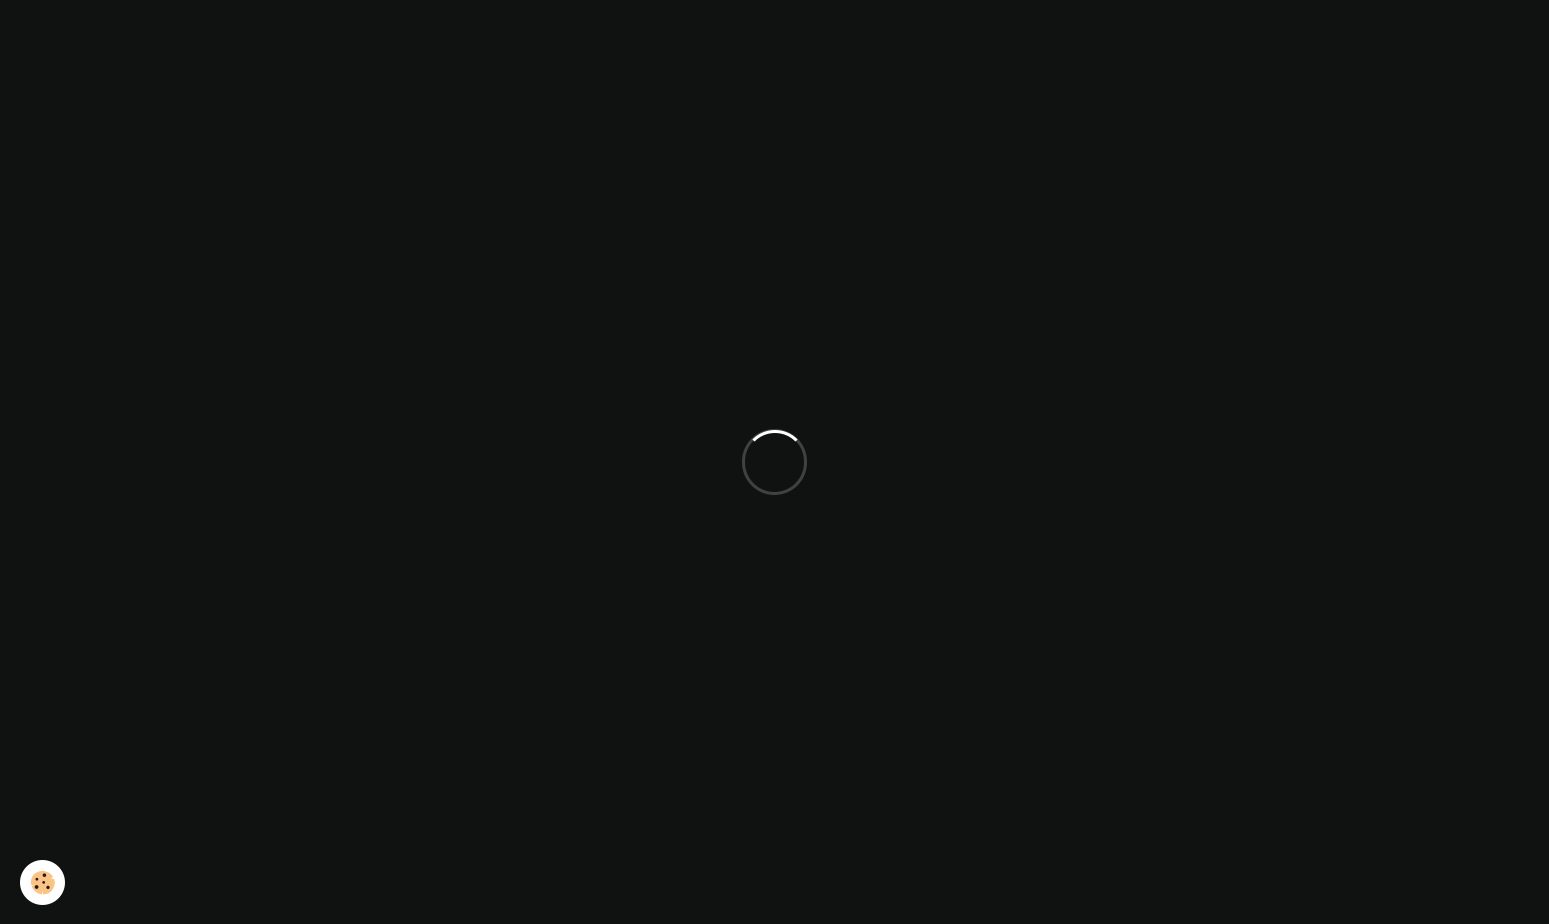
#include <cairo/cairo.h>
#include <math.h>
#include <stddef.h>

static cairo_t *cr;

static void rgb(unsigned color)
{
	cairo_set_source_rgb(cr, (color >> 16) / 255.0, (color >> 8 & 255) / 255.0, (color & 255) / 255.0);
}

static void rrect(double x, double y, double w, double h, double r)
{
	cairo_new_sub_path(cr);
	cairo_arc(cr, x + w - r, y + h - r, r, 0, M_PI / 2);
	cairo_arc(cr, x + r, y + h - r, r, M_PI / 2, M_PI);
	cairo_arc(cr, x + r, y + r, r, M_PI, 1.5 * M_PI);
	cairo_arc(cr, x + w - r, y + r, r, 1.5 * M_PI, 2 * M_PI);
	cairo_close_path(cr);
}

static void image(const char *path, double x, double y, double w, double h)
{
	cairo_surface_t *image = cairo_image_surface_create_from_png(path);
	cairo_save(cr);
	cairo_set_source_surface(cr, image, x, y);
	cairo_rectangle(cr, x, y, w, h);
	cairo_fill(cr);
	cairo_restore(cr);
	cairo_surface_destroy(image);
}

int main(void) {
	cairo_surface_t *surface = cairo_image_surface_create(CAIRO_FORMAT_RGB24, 1549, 924);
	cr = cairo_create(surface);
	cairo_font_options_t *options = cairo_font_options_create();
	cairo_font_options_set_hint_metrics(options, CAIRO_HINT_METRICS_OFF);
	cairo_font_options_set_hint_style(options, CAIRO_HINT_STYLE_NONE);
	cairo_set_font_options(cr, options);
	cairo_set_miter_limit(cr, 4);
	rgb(0x101111);
	cairo_paint(cr);
	cairo_new_path(cr);
	cairo_move_to(cr, 753.5, 440.5);
	cairo_curve_to(cr, 765, 428.5, 785, 428.5, 796.5, 440.5);
	rgb(0xffffff);
	cairo_set_line_width(cr, 3);
	cairo_stroke(cr);
	rrect(743.5, 430.5, 62, 63, 31);
	cairo_set_source_rgba(cr, 1, 1, 1, 0.2);
	cairo_stroke(cr);
	rgb(0xffffff);
	cairo_arc(cr, 42.5, 882.5, 22.5, 0, 2 * M_PI);
	cairo_fill(cr);
	image("img/1.png", 30, 870, 25, 25);
	cairo_surface_write_to_png(surface, "page.png");
	cairo_font_options_destroy(options);
	cairo_destroy(cr);
	cairo_surface_destroy(surface);
	return 0;
}
